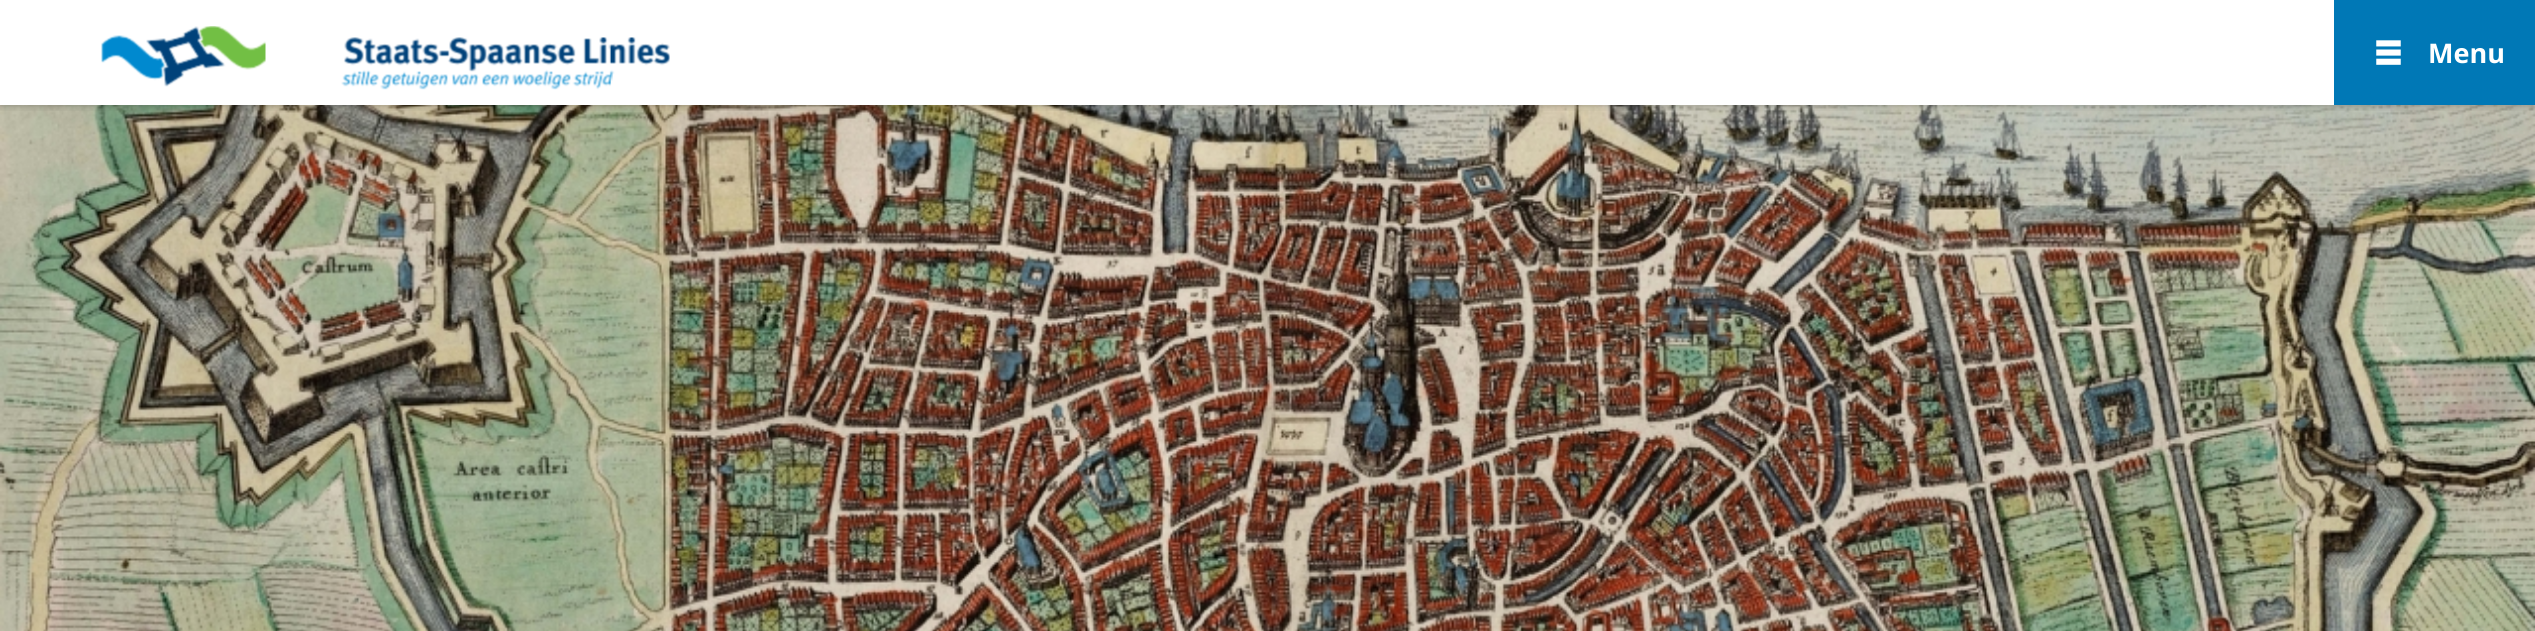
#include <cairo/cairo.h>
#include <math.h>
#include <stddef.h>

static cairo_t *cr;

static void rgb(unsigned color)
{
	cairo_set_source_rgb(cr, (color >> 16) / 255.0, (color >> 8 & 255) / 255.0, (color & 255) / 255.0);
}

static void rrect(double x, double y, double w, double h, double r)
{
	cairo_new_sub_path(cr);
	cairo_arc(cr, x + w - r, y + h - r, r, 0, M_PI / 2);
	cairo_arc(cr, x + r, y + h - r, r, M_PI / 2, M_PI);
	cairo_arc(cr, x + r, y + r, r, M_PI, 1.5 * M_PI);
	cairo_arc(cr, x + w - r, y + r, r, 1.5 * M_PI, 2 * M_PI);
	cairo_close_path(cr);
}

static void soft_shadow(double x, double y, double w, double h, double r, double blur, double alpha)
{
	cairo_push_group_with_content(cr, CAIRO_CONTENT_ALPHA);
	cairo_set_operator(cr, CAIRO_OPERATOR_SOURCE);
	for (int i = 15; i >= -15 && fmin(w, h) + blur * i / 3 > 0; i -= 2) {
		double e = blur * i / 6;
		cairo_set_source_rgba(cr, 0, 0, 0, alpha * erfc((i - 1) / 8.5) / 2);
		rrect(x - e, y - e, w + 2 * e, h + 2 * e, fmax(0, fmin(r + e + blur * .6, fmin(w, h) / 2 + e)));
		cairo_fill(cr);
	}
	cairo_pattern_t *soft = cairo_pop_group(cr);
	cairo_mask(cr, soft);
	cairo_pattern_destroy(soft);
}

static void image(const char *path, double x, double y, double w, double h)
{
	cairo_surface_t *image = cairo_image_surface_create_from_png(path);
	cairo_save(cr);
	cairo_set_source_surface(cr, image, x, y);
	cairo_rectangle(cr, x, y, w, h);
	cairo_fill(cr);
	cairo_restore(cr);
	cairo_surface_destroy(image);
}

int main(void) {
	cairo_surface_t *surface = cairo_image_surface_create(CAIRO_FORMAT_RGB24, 2535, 631);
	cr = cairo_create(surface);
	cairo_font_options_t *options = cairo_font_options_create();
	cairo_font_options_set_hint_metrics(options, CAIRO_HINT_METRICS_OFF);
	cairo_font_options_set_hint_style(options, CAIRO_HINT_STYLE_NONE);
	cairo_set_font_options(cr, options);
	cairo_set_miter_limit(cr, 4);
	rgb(0xffffff);
	cairo_paint(cr);
	image("img/3.png", 0, 105, 2535, 526);
	cairo_save(cr);
	cairo_rectangle(cr, 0, 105, 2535, 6);
	cairo_clip(cr);
	rgb(0x000000);
	soft_shadow(0, 0, 2535, 105, 0, 4, 0.3);
	cairo_restore(cr);
	image("img/1.png", 101, 26, 165, 61);
	image("img/2.png", 341, 37, 329, 53);
	rgb(0x0078b6);
	cairo_rectangle(cr, 2334, 0, 201, 105);
	cairo_fill(cr);
	cairo_select_font_face(cr, "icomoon", CAIRO_FONT_SLANT_NORMAL, CAIRO_FONT_WEIGHT_NORMAL);
	cairo_set_font_size(cr, 49);
	rgb(0xffffff);
	cairo_move_to(cr, 2364, 74);
	cairo_show_text(cr, "4");
	cairo_select_font_face(cr, "Open Sans", CAIRO_FONT_SLANT_NORMAL, CAIRO_FONT_WEIGHT_BOLD);
	cairo_set_font_size(cr, 27);
	cairo_move_to(cr, 2428, 63);
	cairo_show_text(cr, "Menu");
	cairo_surface_write_to_png(surface, "page.png");
	cairo_font_options_destroy(options);
	cairo_destroy(cr);
	cairo_surface_destroy(surface);
	return 0;
}
